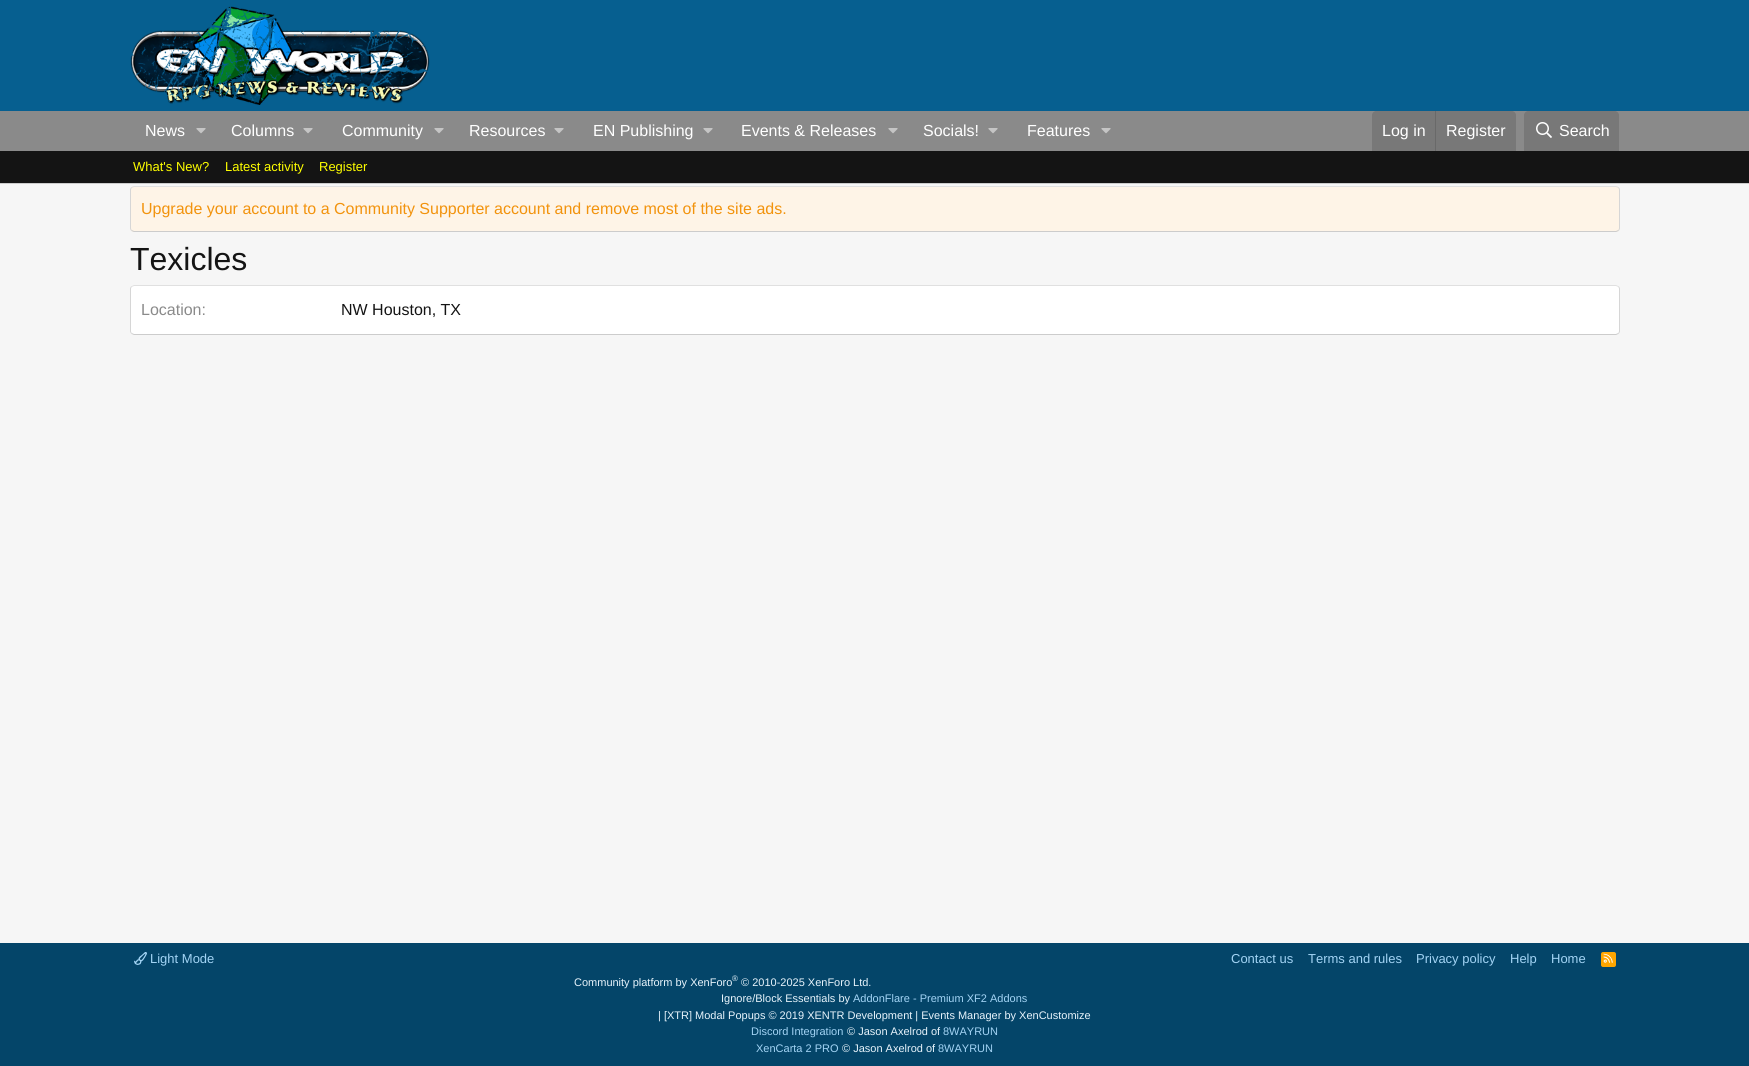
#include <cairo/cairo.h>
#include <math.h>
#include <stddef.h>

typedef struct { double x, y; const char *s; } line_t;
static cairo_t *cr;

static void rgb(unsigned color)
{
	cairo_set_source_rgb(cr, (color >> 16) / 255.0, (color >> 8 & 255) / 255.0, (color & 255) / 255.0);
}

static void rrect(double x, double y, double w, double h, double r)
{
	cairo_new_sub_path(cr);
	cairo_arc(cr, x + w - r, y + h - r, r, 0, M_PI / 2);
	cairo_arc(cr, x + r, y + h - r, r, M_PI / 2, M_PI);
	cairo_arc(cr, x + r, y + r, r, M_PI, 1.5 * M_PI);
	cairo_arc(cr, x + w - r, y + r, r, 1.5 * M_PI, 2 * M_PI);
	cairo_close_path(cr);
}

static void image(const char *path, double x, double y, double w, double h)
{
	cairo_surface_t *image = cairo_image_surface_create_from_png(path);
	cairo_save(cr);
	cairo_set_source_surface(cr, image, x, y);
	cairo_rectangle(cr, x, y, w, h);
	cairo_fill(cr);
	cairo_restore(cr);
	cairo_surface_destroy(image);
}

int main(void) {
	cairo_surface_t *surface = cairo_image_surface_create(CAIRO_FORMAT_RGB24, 1749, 1066);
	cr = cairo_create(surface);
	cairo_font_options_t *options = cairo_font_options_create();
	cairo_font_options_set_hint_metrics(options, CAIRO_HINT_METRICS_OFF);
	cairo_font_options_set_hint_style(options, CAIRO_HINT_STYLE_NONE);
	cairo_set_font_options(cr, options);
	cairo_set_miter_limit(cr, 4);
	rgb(0xf6f6f6);
	cairo_paint(cr);
	rgb(0x065f90);
	cairo_rectangle(cr, 0, 0, 1749, 111);
	cairo_fill(cr);
	image("img/1.png", 130, 6, 300, 99);
	rgb(0x8a8a8a);
	cairo_rectangle(cr, 0, 111, 1749, 40);
	cairo_fill(cr);
	image("img/2.png", 196, 128, 10, 6);
	image("img/2.png", 303, 128, 10, 6);
	image("img/2.png", 434, 128, 10, 6);
	image("img/2.png", 554, 128, 10, 6);
	image("img/2.png", 703, 128, 10, 6);
	image("img/2.png", 888, 128, 10, 6);
	image("img/2.png", 988, 128, 10, 6);
	image("img/2.png", 1101, 128, 10, 6);
	rgb(0x787878);
	cairo_new_path(cr);
	cairo_move_to(cr, 1376, 111);
	cairo_line_to(cr, 1512, 111);
	cairo_curve_to(cr, 1514, 111, 1516, 113, 1516, 115);
	cairo_line_to(cr, 1516, 151);
	cairo_line_to(cr, 1372, 151);
	cairo_line_to(cr, 1372, 115);
	cairo_curve_to(cr, 1372, 113, 1374, 111, 1376, 111);
	cairo_close_path(cr);
	cairo_fill(cr);
	rgb(0x696969);
	cairo_rectangle(cr, 1435, 111, 1, 40);
	cairo_fill(cr);
	rgb(0x787878);
	cairo_new_path(cr);
	cairo_move_to(cr, 1528, 111);
	cairo_line_to(cr, 1615, 111);
	cairo_curve_to(cr, 1617, 111, 1619, 113, 1619, 115);
	cairo_line_to(cr, 1619, 151);
	cairo_line_to(cr, 1524, 151);
	cairo_line_to(cr, 1524, 115);
	cairo_curve_to(cr, 1524, 113, 1526, 111, 1528, 111);
	cairo_close_path(cr);
	cairo_fill(cr);
	image("img/3.png", 1536, 122, 16, 16);
	rgb(0x141414);
	cairo_rectangle(cr, 0, 151, 1749, 32);
	cairo_fill(cr);
	rgb(0xcccccc);
	cairo_rectangle(cr, 0, 183, 1749, 1);
	cairo_fill(cr);
	rgb(0xfef4e7);
	rrect(130, 186, 1490, 46, 4);
	cairo_fill(cr);
	cairo_new_path(cr);
	cairo_move_to(cr, 131.5, 187.5);
	cairo_line_to(cr, 134, 186.5);
	cairo_line_to(cr, 1616, 186.5);
	cairo_line_to(cr, 1618.5, 187.5);
	rgb(0xe0e0e0);
	cairo_set_line_width(cr, 1);
	cairo_stroke(cr);
	cairo_new_path(cr);
	cairo_move_to(cr, 1618.5, 187.5);
	cairo_curve_to(cr, 1619, 188, 1619.5, 189, 1619.5, 190);
	cairo_line_to(cr, 1619.5, 228);
	cairo_curve_to(cr, 1619.5, 229, 1619, 230, 1618.5, 230.5);
	rgb(0xd6d6d6);
	cairo_stroke(cr);
	cairo_new_path(cr);
	cairo_move_to(cr, 1618.5, 230.5);
	cairo_line_to(cr, 1616, 231.5);
	cairo_line_to(cr, 134, 231.5);
	cairo_line_to(cr, 131.5, 230.5);
	rgb(0xcccccc);
	cairo_stroke(cr);
	cairo_new_path(cr);
	cairo_move_to(cr, 131.5, 230.5);
	cairo_curve_to(cr, 131, 230, 130.5, 229, 130.5, 228);
	cairo_line_to(cr, 130.5, 190);
	cairo_curve_to(cr, 130.5, 189, 131, 188, 131.5, 187.5);
	rgb(0xd6d6d6);
	cairo_stroke(cr);
	rgb(0xffffff);
	rrect(130, 285, 1490, 50, 4);
	cairo_fill(cr);
	cairo_new_path(cr);
	cairo_move_to(cr, 131.5, 286.5);
	cairo_line_to(cr, 134, 285.5);
	cairo_line_to(cr, 1616, 285.5);
	cairo_line_to(cr, 1618.5, 286.5);
	rgb(0xe0e0e0);
	cairo_stroke(cr);
	cairo_new_path(cr);
	cairo_move_to(cr, 1618.5, 286.5);
	cairo_curve_to(cr, 1619, 287, 1619.5, 288, 1619.5, 289);
	cairo_line_to(cr, 1619.5, 331);
	cairo_curve_to(cr, 1619.5, 332, 1619, 333, 1618.5, 333.5);
	rgb(0xd6d6d6);
	cairo_stroke(cr);
	cairo_new_path(cr);
	cairo_move_to(cr, 1618.5, 333.5);
	cairo_line_to(cr, 1616, 334.5);
	cairo_line_to(cr, 134, 334.5);
	cairo_line_to(cr, 131.5, 333.5);
	rgb(0xcccccc);
	cairo_stroke(cr);
	cairo_new_path(cr);
	cairo_move_to(cr, 131.5, 333.5);
	cairo_curve_to(cr, 131, 333, 130.5, 332, 130.5, 331);
	cairo_line_to(cr, 130.5, 289);
	cairo_curve_to(cr, 130.5, 288, 131, 287, 131.5, 286.5);
	rgb(0xd6d6d6);
	cairo_stroke(cr);
	rgb(0x044569);
	cairo_rectangle(cr, 0, 943, 1749, 123);
	cairo_fill(cr);
	image("img/4.png", 134, 952, 13, 13);
	rgb(0xffa500);
	rrect(1601, 952, 15, 15, 2);
	cairo_fill(cr);
	image("img/5.png", 1603, 953, 10, 10);
	cairo_select_font_face(cr, "Liberation Sans", CAIRO_FONT_SLANT_NORMAL, CAIRO_FONT_WEIGHT_NORMAL);
	cairo_set_font_size(cr, 16);
	rgb(0xffffff);
	{
		static const line_t items[] = {
			{145, 136, "News"},
			{231, 136, "Columns"},
			{342, 136, "Community"},
			{469, 136, "Resources"},
			{593, 136, "EN Publishing"},
			{741, 136, "Events & Releases"},
			{923, 136, "Socials!"},
			{1027, 136, "Features"},
			{1382, 136, "Log in"},
			{1446, 136, "Register"},
			{1559, 136, "Search"},
		};
		for (size_t i = 0; i < sizeof items / sizeof *items; i++) {
			cairo_move_to(cr, items[i].x, items[i].y);
			cairo_show_text(cr, items[i].s);
		}
	}
	cairo_set_font_size(cr, 13);
	rgb(0xffff00);
	{
		static const line_t items[] = {
			{133, 171, "What's New?"},
			{225, 171, "Latest activity"},
			{319, 171, "Register"},
		};
		for (size_t i = 0; i < sizeof items / sizeof *items; i++) {
			cairo_move_to(cr, items[i].x, items[i].y);
			cairo_show_text(cr, items[i].s);
		}
	}
	cairo_set_font_size(cr, 16);
	rgb(0xf2930d);
	cairo_move_to(cr, 141, 214);
	cairo_show_text(cr, "Upgrade your account to a Community Supporter account and remove most of the site ads.");
	cairo_set_font_size(cr, 32);
	rgb(0x141414);
	cairo_move_to(cr, 130, 270);
	cairo_show_text(cr, "Texicles");
	cairo_set_font_size(cr, 16);
	rgb(0x8a8a8a);
	cairo_move_to(cr, 141, 315);
	cairo_show_text(cr, "Location:");
	rgb(0x141414);
	cairo_move_to(cr, 341, 315);
	cairo_show_text(cr, "NW Houston, TX");
	cairo_set_font_size(cr, 13);
	rgb(0xa3d4f5);
	{
		static const line_t items[] = {
			{150, 963, "Light Mode"},
			{1231, 963, "Contact us"},
			{1308, 963, "Terms and rules"},
			{1416, 963, "Privacy policy"},
			{1510, 963, "Help"},
			{1551, 963, "Home"},
		};
		for (size_t i = 0; i < sizeof items / sizeof *items; i++) {
			cairo_move_to(cr, items[i].x, items[i].y);
			cairo_show_text(cr, items[i].s);
		}
	}
	cairo_set_font_size(cr, 11);
	rgb(0xe8f4fc);
	cairo_move_to(cr, 574, 986);
	cairo_show_text(cr, "Community platform by XenForo");
	cairo_set_font_size(cr, 8);
	cairo_move_to(cr, 732, 981);
	cairo_show_text(cr, "®");
	cairo_set_font_size(cr, 11);
	cairo_move_to(cr, 741, 986);
	cairo_show_text(cr, "© 2010-2025 XenForo Ltd.");
	cairo_move_to(cr, 721, 1002);
	cairo_show_text(cr, "Ignore/Block Essentials by");
	rgb(0xa3d4f5);
	cairo_move_to(cr, 853, 1002);
	cairo_show_text(cr, "AddonFlare - Premium XF2 Addons");
	rgb(0xe8f4fc);
	cairo_move_to(cr, 658, 1019);
	cairo_show_text(cr, "| [XTR] Modal Popups © 2019 XENTR Development | Events Manager by XenCustomize");
	rgb(0xa3d4f5);
	cairo_move_to(cr, 751, 1035);
	cairo_show_text(cr, "Discord Integration");
	rgb(0xe8f4fc);
	cairo_move_to(cr, 847, 1035);
	cairo_show_text(cr, "© Jason Axelrod of");
	rgb(0xa3d4f5);
	cairo_move_to(cr, 943, 1035);
	cairo_show_text(cr, "8WAYRUN");
	cairo_move_to(cr, 756, 1052);
	cairo_show_text(cr, "XenCarta 2 PRO");
	rgb(0xe8f4fc);
	cairo_move_to(cr, 842, 1052);
	cairo_show_text(cr, "© Jason Axelrod of");
	rgb(0xa3d4f5);
	cairo_move_to(cr, 938, 1052);
	cairo_show_text(cr, "8WAYRUN");
	cairo_surface_write_to_png(surface, "page.png");
	cairo_font_options_destroy(options);
	cairo_destroy(cr);
	cairo_surface_destroy(surface);
	return 0;
}
